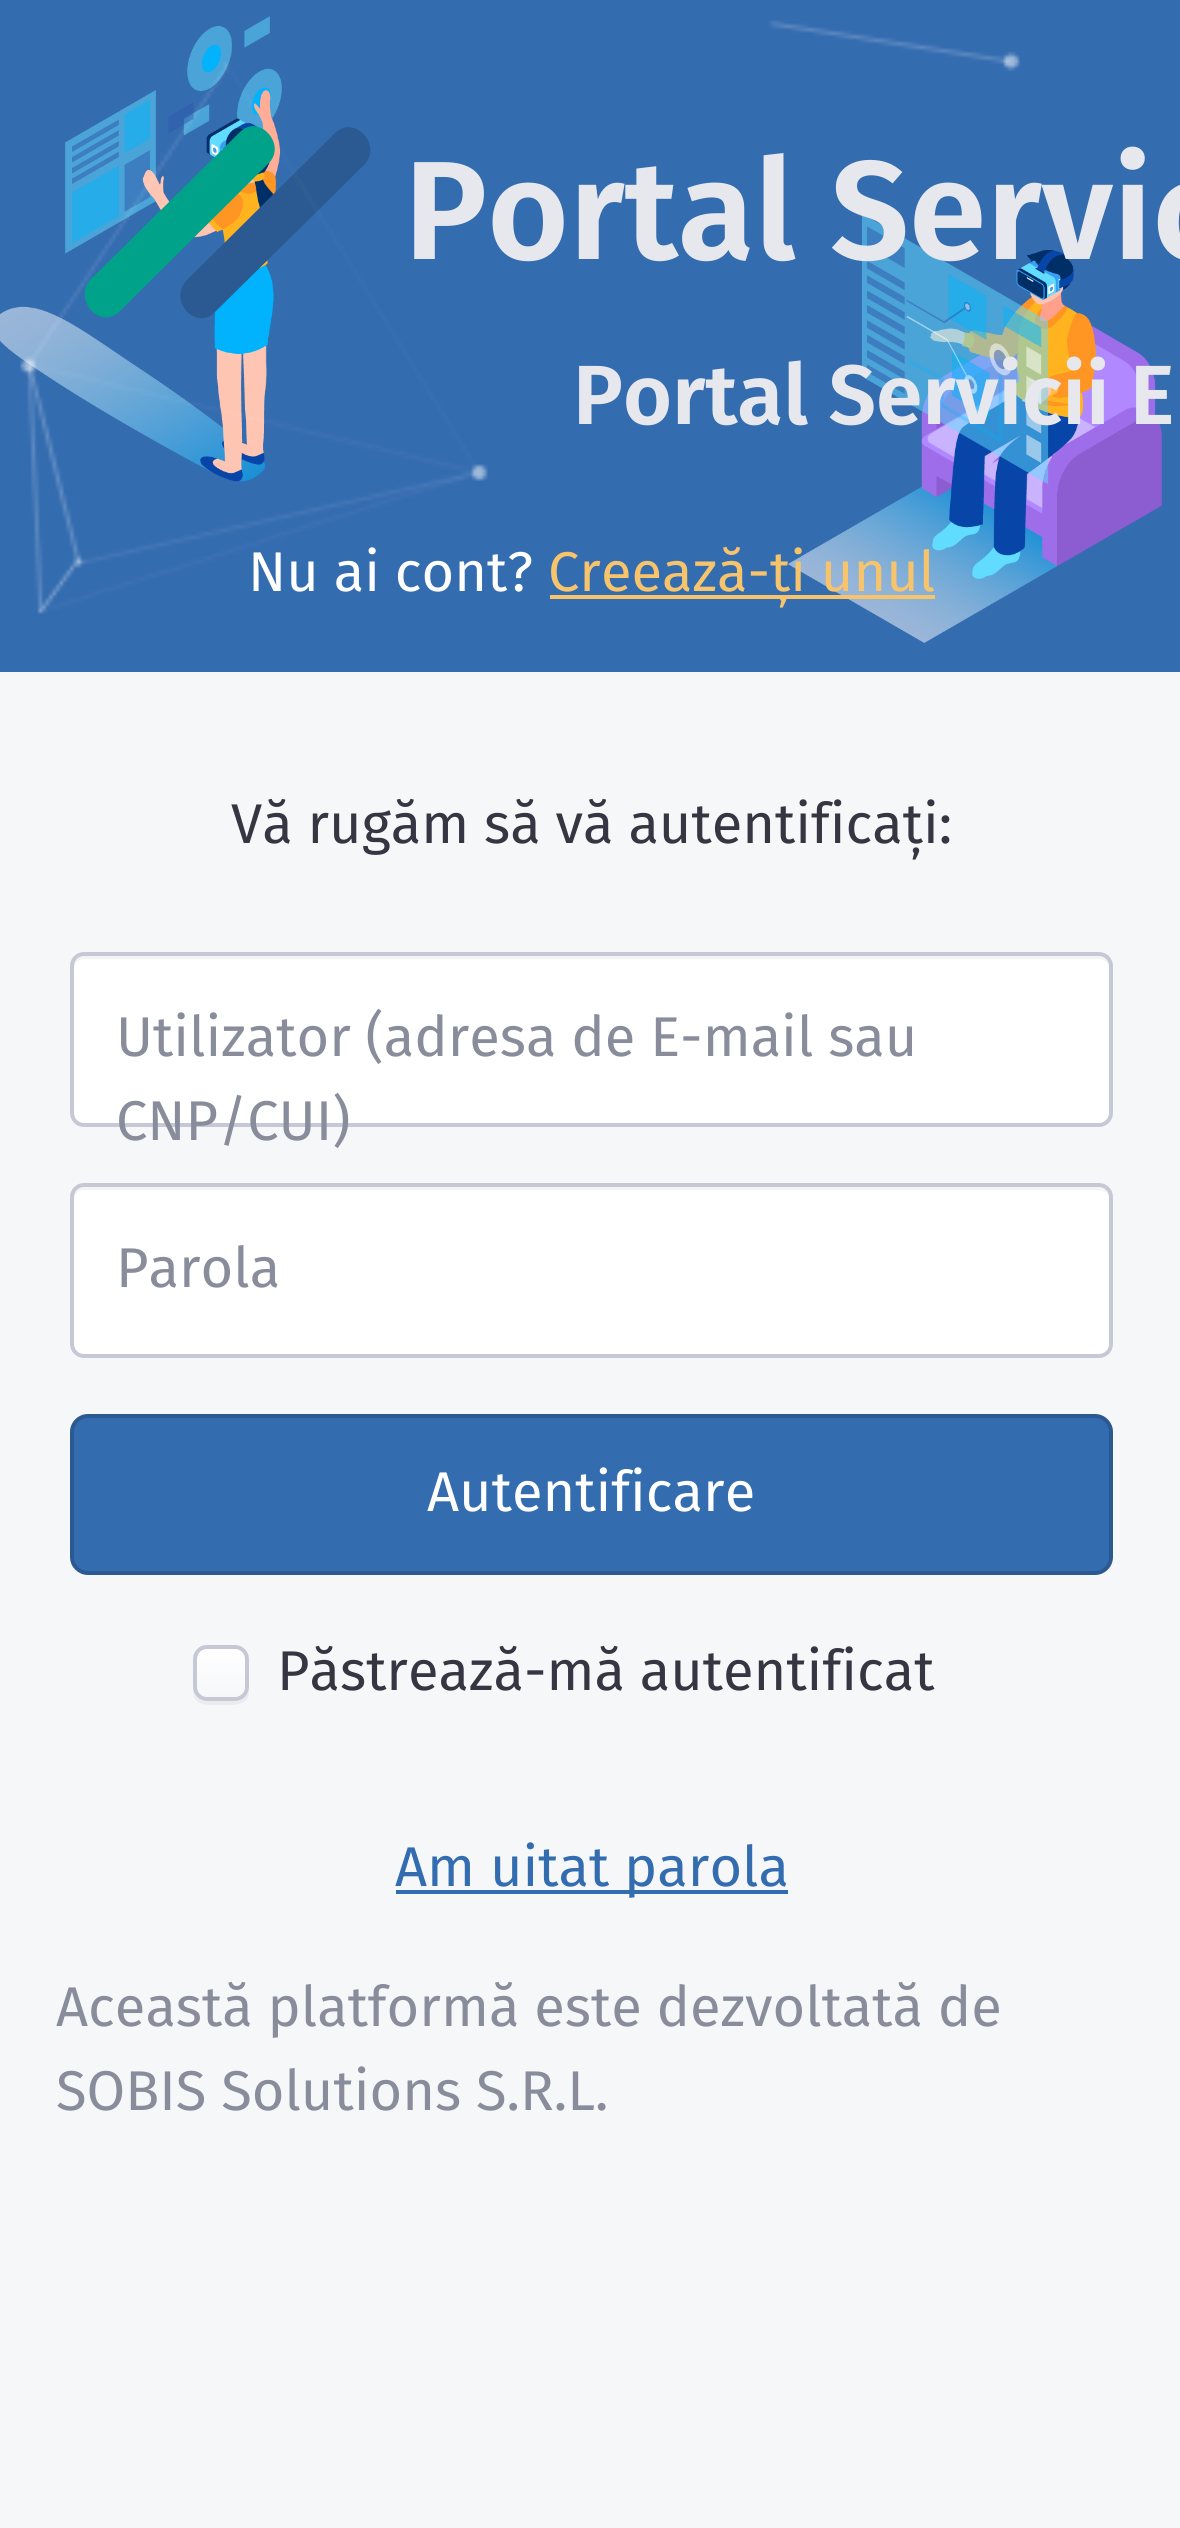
#include <cairo/cairo.h>
#include <math.h>
#include <stddef.h>

typedef struct { double x, y; const char *s; } line_t;
static cairo_t *cr;

static void rgb(unsigned color)
{
	cairo_set_source_rgb(cr, (color >> 16) / 255.0, (color >> 8 & 255) / 255.0, (color & 255) / 255.0);
}

static void rrect(double x, double y, double w, double h, double r)
{
	cairo_new_sub_path(cr);
	cairo_arc(cr, x + w - r, y + h - r, r, 0, M_PI / 2);
	cairo_arc(cr, x + r, y + h - r, r, M_PI / 2, M_PI);
	cairo_arc(cr, x + r, y + r, r, M_PI, 1.5 * M_PI);
	cairo_arc(cr, x + w - r, y + r, r, 1.5 * M_PI, 2 * M_PI);
	cairo_close_path(cr);
}

static void image(const char *path, double x, double y, double w, double h)
{
	cairo_surface_t *image = cairo_image_surface_create_from_png(path);
	cairo_save(cr);
	cairo_set_source_surface(cr, image, x, y);
	cairo_rectangle(cr, x, y, w, h);
	cairo_fill(cr);
	cairo_restore(cr);
	cairo_surface_destroy(image);
}

int main(void) {
	cairo_surface_t *surface = cairo_image_surface_create(CAIRO_FORMAT_RGB24, 1180, 2528);
	cr = cairo_create(surface);
	cairo_font_options_t *options = cairo_font_options_create();
	cairo_font_options_set_hint_metrics(options, CAIRO_HINT_METRICS_OFF);
	cairo_font_options_set_hint_style(options, CAIRO_HINT_STYLE_NONE);
	cairo_set_font_options(cr, options);
	cairo_set_miter_limit(cr, 4);
	cairo_pattern_t *gradient;
	rgb(0xf6f7f9);
	cairo_paint(cr);
	rgb(0x346cb0);
	cairo_rectangle(cr, 0, 0, 1180, 672);
	cairo_fill(cr);
	image("img/1.png", 0, 16, 1162, 627);
	rgb(0x00a28a);
	cairo_set_fill_rule(cr, CAIRO_FILL_RULE_EVEN_ODD);
	cairo_new_path(cr);
	cairo_move_to(cr, 120, 311);
	cairo_line_to(cr, 268, 164);
	cairo_curve_to(cr, 288, 145, 259, 113, 240, 132);
	cairo_line_to(cr, 91, 279);
	cairo_curve_to(cr, 72, 299, 100, 331, 120, 311);
	cairo_fill(cr);
	rgb(0x2b5a92);
	cairo_new_path(cr);
	cairo_move_to(cr, 215, 312);
	cairo_line_to(cr, 364, 165);
	cairo_curve_to(cr, 383, 146, 355, 114, 335, 133);
	cairo_line_to(cr, 187, 280);
	cairo_curve_to(cr, 167, 300, 196, 332, 215, 312);
	cairo_fill(cr);
	rgb(0xf7c46c);
	cairo_rectangle(cr, 550, 595, 385, 4);
	cairo_fill(cr);
	rgb(0xffffff);
	rrect(74, 956, 1036, 168, 11);
	cairo_fill(cr);
	cairo_set_source_rgba(cr, 0.133, 0.133, 0.188, 0.05);
	cairo_set_fill_rule(cr, CAIRO_FILL_RULE_WINDING);
	cairo_new_path(cr);
	cairo_move_to(cr, 84, 959);
	cairo_line_to(cr, 1099, 959);
	cairo_curve_to(cr, 1105, 959, 1110, 964, 1110, 970);
	cairo_line_to(cr, 1110, 967);
	cairo_curve_to(cr, 1110, 961, 1105, 956, 1099, 956);
	cairo_line_to(cr, 85, 956);
	cairo_curve_to(cr, 79, 956, 74, 961, 74, 967);
	cairo_line_to(cr, 74, 970);
	cairo_curve_to(cr, 74, 964, 78, 959, 84, 959);
	cairo_close_path(cr);
	cairo_fill(cr);
	rrect(72, 954, 1039, 171, 12);
	rgb(0xc6c9d5);
	cairo_set_line_width(cr, 4);
	cairo_stroke(cr);
	rgb(0xffffff);
	rrect(74, 1187, 1036, 168, 11);
	cairo_fill(cr);
	cairo_set_source_rgba(cr, 0.133, 0.133, 0.188, 0.05);
	cairo_new_path(cr);
	cairo_move_to(cr, 84, 1190);
	cairo_line_to(cr, 1099, 1190);
	cairo_curve_to(cr, 1105, 1190, 1110, 1195, 1110, 1200);
	cairo_line_to(cr, 1110, 1198);
	cairo_curve_to(cr, 1110, 1192, 1105, 1187, 1099, 1187);
	cairo_line_to(cr, 85, 1187);
	cairo_curve_to(cr, 79, 1187, 74, 1192, 74, 1198);
	cairo_line_to(cr, 74, 1200);
	cairo_curve_to(cr, 74, 1195, 78, 1190, 84, 1190);
	cairo_close_path(cr);
	cairo_fill(cr);
	rrect(72, 1185, 1039, 171, 12);
	rgb(0xc6c9d5);
	cairo_stroke(cr);
	rgb(0x346cb0);
	rrect(72, 1416, 1039, 157, 16);
	cairo_fill_preserve(cr);
	rgb(0x2b5a92);
	cairo_stroke(cr);
	rgb(0xebecef);
	cairo_new_path(cr);
	cairo_move_to(cr, 193, 1691);
	cairo_curve_to(cr, 193, 1707, 210, 1705, 221, 1705);
	cairo_curve_to(cr, 231, 1705, 246, 1707, 249, 1694);
	cairo_line_to(cr, 249, 1668);
	cairo_line_to(cr, 248, 1659);
	cairo_line_to(cr, 248, 1687);
	cairo_curve_to(cr, 248, 1695, 242, 1701, 234, 1701);
	cairo_line_to(cr, 206, 1701);
	cairo_curve_to(cr, 200, 1701, 195, 1697, 193, 1691);
	cairo_close_path(cr);
	cairo_fill(cr);
	cairo_save(cr);
	rrect(193, 1645, 56, 56, 14);
	cairo_clip(cr);
	gradient = cairo_pattern_create_linear(221, 1649, 221, 1698);
	cairo_pattern_add_color_stop_rgba(gradient, 0, 1, 1, 1, 1);
	cairo_pattern_add_color_stop_rgba(gradient, 1, 0.965, 0.969, 0.976, 1);
	cairo_set_source(cr, gradient);
	cairo_pattern_destroy(gradient);
	cairo_rectangle(cr, 193, 1649, 56, 49);
	cairo_fill(cr);
	cairo_restore(cr);
	rrect(195, 1647, 52, 52, 12);
	rgb(0xc6c9d5);
	cairo_stroke(cr);
	rgb(0x346cb0);
	cairo_rectangle(cr, 396, 1890, 392, 4);
	cairo_fill(cr);
	cairo_select_font_face(cr, "Fira Sans SemiBold", CAIRO_FONT_SLANT_NORMAL, CAIRO_FONT_WEIGHT_NORMAL);
	cairo_set_font_size(cr, 140);
	rgb(0xe6e8ed);
	cairo_move_to(cr, 404, 259);
	cairo_show_text(cr, "Portal Servic");
	cairo_set_font_size(cr, 84);
	cairo_move_to(cr, 573, 424);
	cairo_show_text(cr, "Portal Servicii E");
	cairo_select_font_face(cr, "Fira Sans", CAIRO_FONT_SLANT_NORMAL, CAIRO_FONT_WEIGHT_NORMAL);
	cairo_set_font_size(cr, 56);
	rgb(0xffffff);
	cairo_move_to(cr, 248, 591);
	cairo_show_text(cr, "Nu ai cont?");
	rgb(0xf7c46c);
	cairo_move_to(cr, 548, 591);
	cairo_show_text(cr, "Creează-ți unul");
	image("img/2.png", 20, 20, 1000, 594);
	rgb(0x363642);
	cairo_move_to(cr, 231, 843);
	cairo_show_text(cr, "Vă rugăm să vă autentificați:");
	rgb(0x888c9b);
	{
		static const line_t items[] = {
			{116, 1056, "Utilizator (adresa de E-mail sau"},
			{116, 1140, "CNP/CUI)"},
			{116, 1287, "Parola"},
		};
		for (size_t i = 0; i < sizeof items / sizeof *items; i++) {
			cairo_move_to(cr, items[i].x, items[i].y);
			cairo_show_text(cr, items[i].s);
		}
	}
	rgb(0xffffff);
	cairo_move_to(cr, 427, 1511);
	cairo_show_text(cr, "Autentificare");
	rgb(0x363642);
	cairo_move_to(cr, 277, 1690);
	cairo_show_text(cr, "Păstrează-mă autentificat");
	rgb(0x346cb0);
	cairo_move_to(cr, 395, 1886);
	cairo_show_text(cr, "Am uitat parola");
	rgb(0x888c9b);
	cairo_move_to(cr, 56, 2026);
	cairo_show_text(cr, "Această platformă este dezvoltată de");
	cairo_move_to(cr, 56, 2110);
	cairo_show_text(cr, "SOBIS Solutions S.R.L.");
	cairo_surface_write_to_png(surface, "page.png");
	cairo_font_options_destroy(options);
	cairo_destroy(cr);
	cairo_surface_destroy(surface);
	return 0;
}
